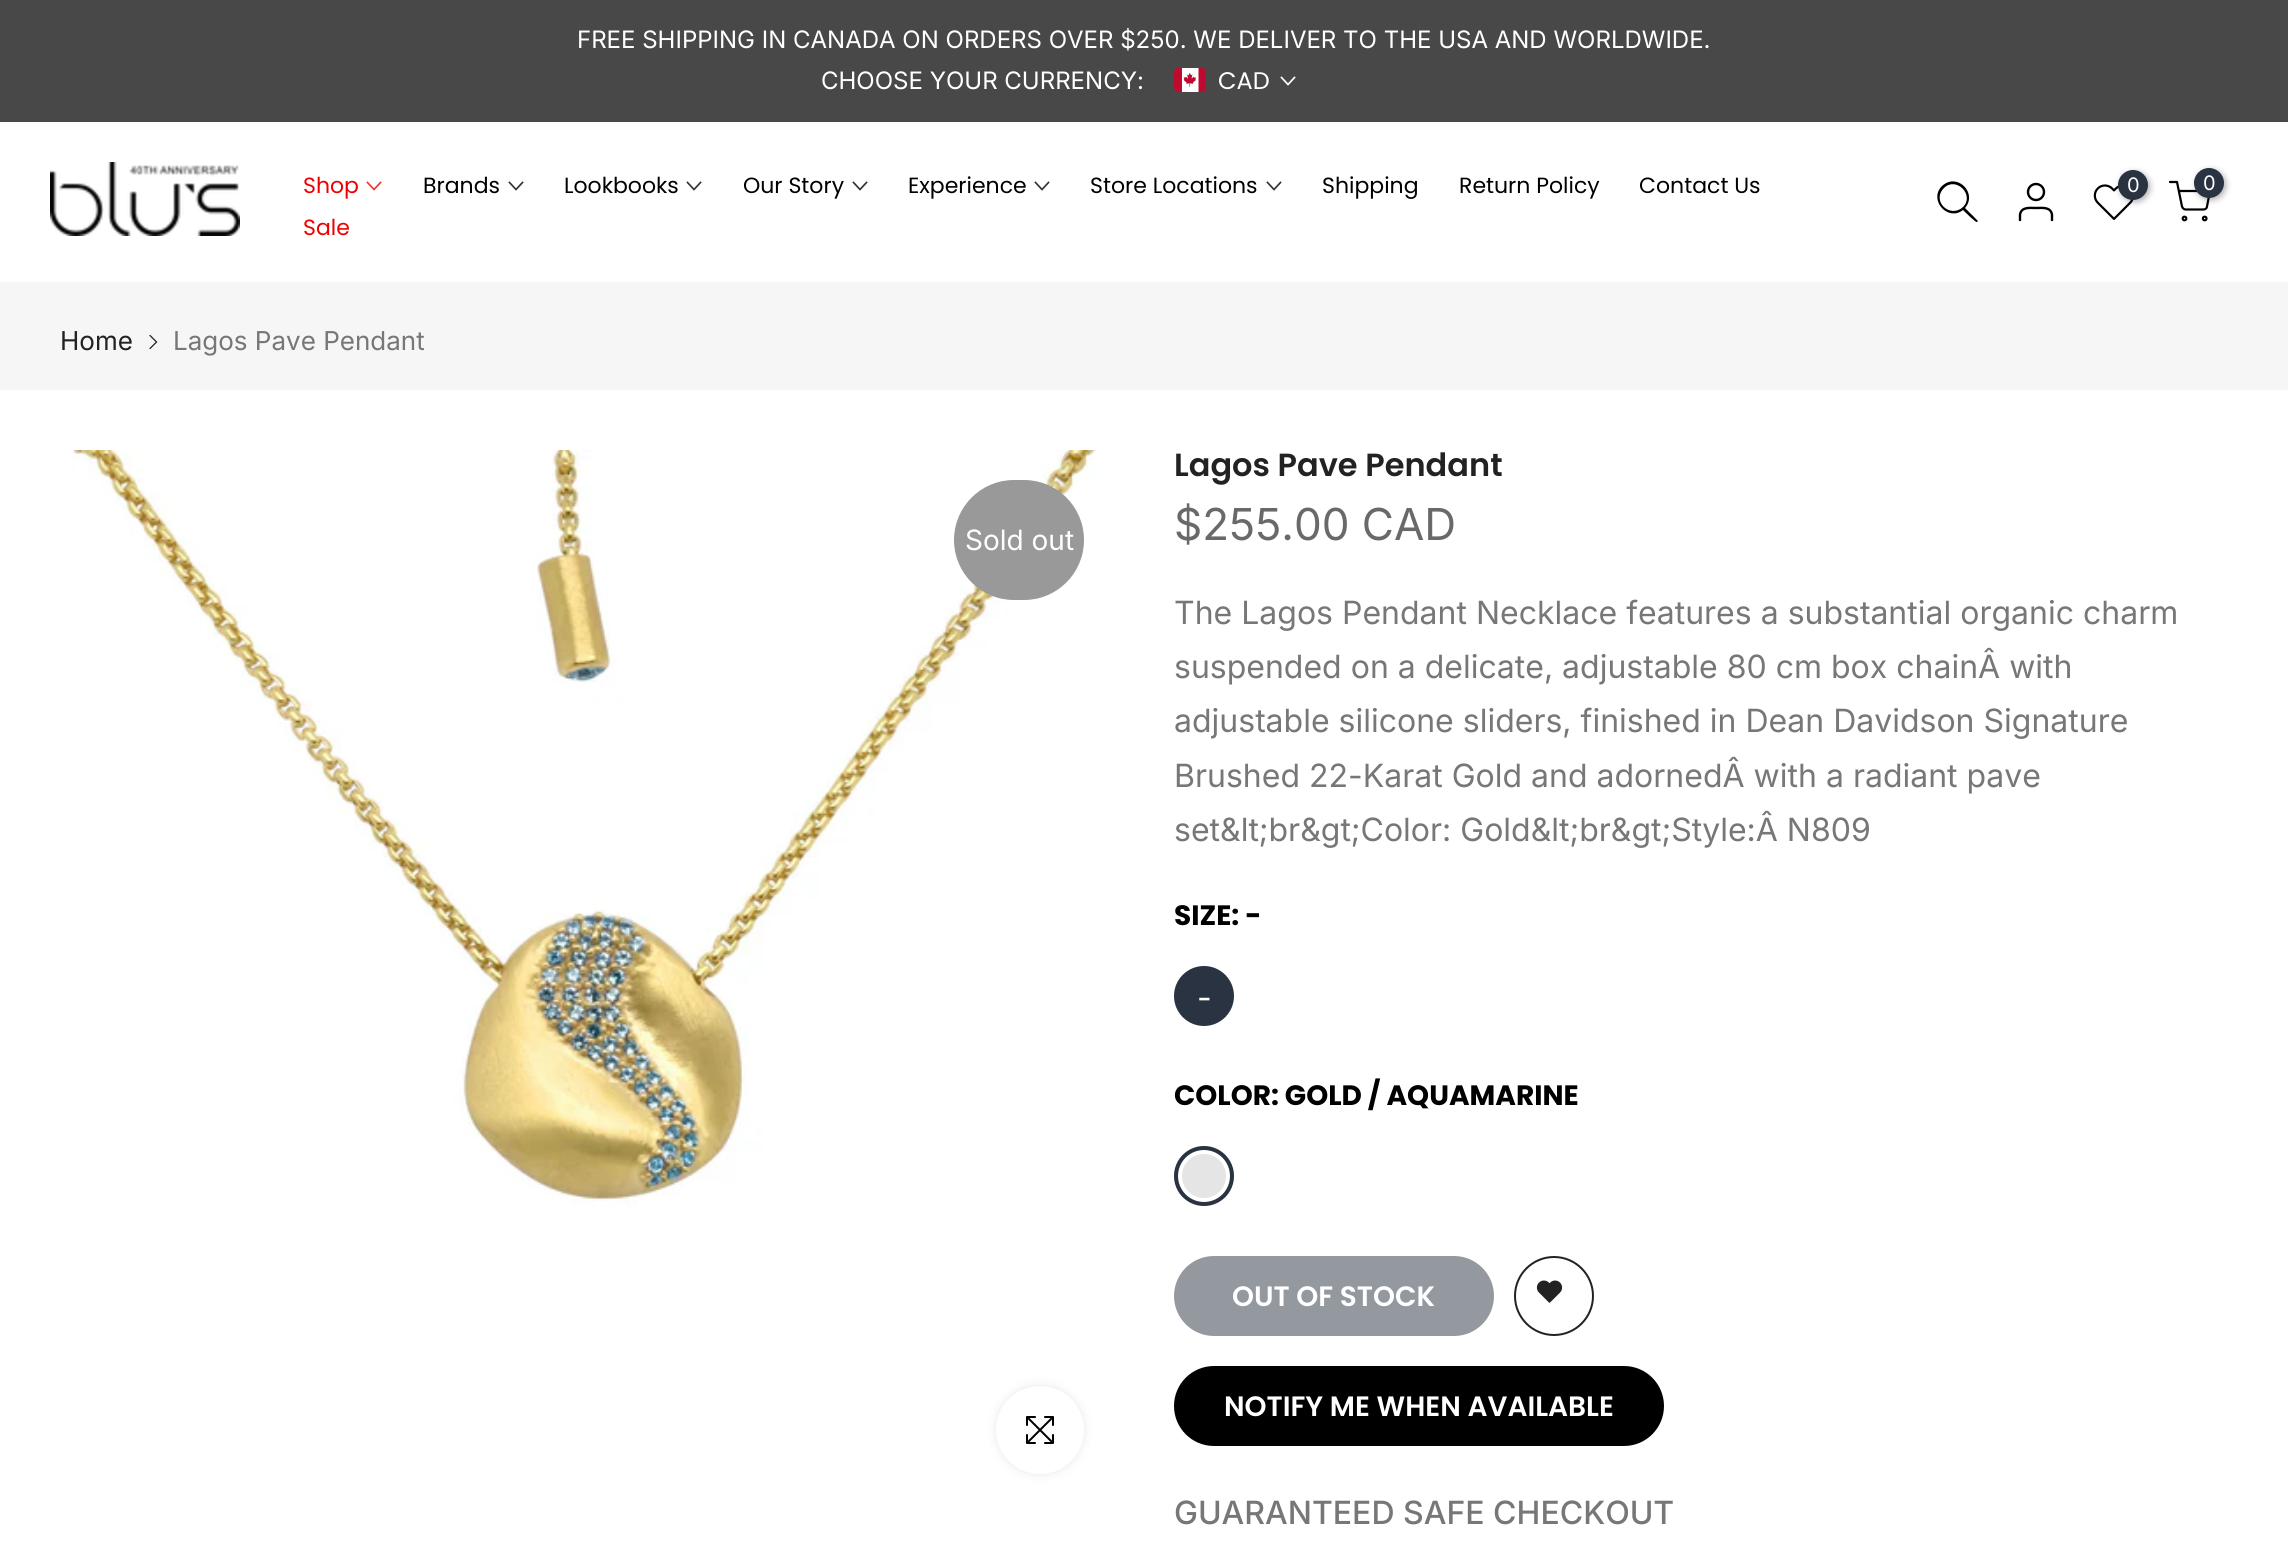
#include <cairo/cairo.h>
#include <math.h>
#include <stddef.h>

typedef struct { double x, y; const char *s; } line_t;
static cairo_t *cr;

static void rgb(unsigned color)
{
	cairo_set_source_rgb(cr, (color >> 16) / 255.0, (color >> 8 & 255) / 255.0, (color & 255) / 255.0);
}

static void rrect(double x, double y, double w, double h, double r)
{
	cairo_new_sub_path(cr);
	cairo_arc(cr, x + w - r, y + h - r, r, 0, M_PI / 2);
	cairo_arc(cr, x + r, y + h - r, r, M_PI / 2, M_PI);
	cairo_arc(cr, x + r, y + r, r, M_PI, 1.5 * M_PI);
	cairo_arc(cr, x + w - r, y + r, r, 1.5 * M_PI, 2 * M_PI);
	cairo_close_path(cr);
}

static void soft_shadow(double x, double y, double w, double h, double r, double blur, double alpha)
{
	cairo_push_group_with_content(cr, CAIRO_CONTENT_ALPHA);
	cairo_set_operator(cr, CAIRO_OPERATOR_SOURCE);
	for (int i = 15; i >= -15 && fmin(w, h) + blur * i / 3 > 0; i -= 2) {
		double e = blur * i / 6;
		cairo_set_source_rgba(cr, 0, 0, 0, alpha * erfc((i - 1) / 8.5) / 2);
		rrect(x - e, y - e, w + 2 * e, h + 2 * e, fmax(0, fmin(r + e + blur * .6, fmin(w, h) / 2 + e)));
		cairo_fill(cr);
	}
	cairo_pattern_t *soft = cairo_pop_group(cr);
	cairo_mask(cr, soft);
	cairo_pattern_destroy(soft);
}

static void image(const char *path, double x, double y, double w, double h)
{
	cairo_surface_t *image = cairo_image_surface_create_from_png(path);
	cairo_save(cr);
	cairo_set_source_surface(cr, image, x, y);
	cairo_rectangle(cr, x, y, w, h);
	cairo_fill(cr);
	cairo_restore(cr);
	cairo_surface_destroy(image);
}

int main(void) {
	cairo_surface_t *surface = cairo_image_surface_create(CAIRO_FORMAT_RGB24, 2288, 1544);
	cr = cairo_create(surface);
	cairo_font_options_t *options = cairo_font_options_create();
	cairo_font_options_set_hint_metrics(options, CAIRO_HINT_METRICS_OFF);
	cairo_font_options_set_hint_style(options, CAIRO_HINT_STYLE_NONE);
	cairo_set_font_options(cr, options);
	cairo_set_miter_limit(cr, 4);
	rgb(0xffffff);
	cairo_paint(cr);
	rgb(0x484848);
	cairo_rectangle(cr, 0, 0, 2288, 122);
	cairo_fill(cr);
	image("img/1.png", 1174, 68, 32, 24);
	cairo_new_path(cr);
	cairo_move_to(cr, 1294.5, 77.5);
	cairo_line_to(cr, 1288, 84.5);
	cairo_line_to(cr, 1281.5, 77.5);
	rgb(0xffffff);
	cairo_set_line_width(cr, 1.7);
	cairo_set_line_cap(cr, CAIRO_LINE_CAP_SQUARE);
	cairo_stroke(cr);
	image("img/2.png", 50, 162, 190, 74);
	cairo_new_path(cr);
	cairo_move_to(cr, 380.5, 182.5);
	cairo_line_to(cr, 374, 189.5);
	cairo_line_to(cr, 367.5, 182.5);
	rgb(0xf03434);
	cairo_stroke(cr);
	cairo_new_path(cr);
	cairo_move_to(cr, 522.5, 182.5);
	cairo_line_to(cr, 516, 189.5);
	cairo_line_to(cr, 509.5, 182.5);
	rgb(0x333333);
	cairo_stroke(cr);
	cairo_new_path(cr);
	cairo_move_to(cr, 700.5, 182.5);
	cairo_line_to(cr, 694, 189.5);
	cairo_line_to(cr, 687.5, 182.5);
	cairo_stroke(cr);
	cairo_new_path(cr);
	cairo_move_to(cr, 866.5, 182.5);
	cairo_line_to(cr, 860, 189.5);
	cairo_line_to(cr, 853.5, 182.5);
	cairo_stroke(cr);
	cairo_new_path(cr);
	cairo_move_to(cr, 1048.5, 182.5);
	cairo_line_to(cr, 1042, 189.5);
	cairo_line_to(cr, 1035.5, 182.5);
	cairo_stroke(cr);
	cairo_new_path(cr);
	cairo_move_to(cr, 1280.5, 182.5);
	cairo_line_to(cr, 1274, 189.5);
	cairo_line_to(cr, 1267.5, 182.5);
	cairo_stroke(cr);
	rgb(0x000000);
	cairo_set_fill_rule(cr, CAIRO_FILL_RULE_EVEN_ODD);
	cairo_new_path(cr);
	cairo_move_to(cr, 1963, 207);
	cairo_curve_to(cr, 1950, 219, 1931, 201, 1944, 188);
	cairo_curve_to(cr, 1956, 176, 1975, 195, 1963, 207);
	cairo_close_path(cr);
	cairo_move_to(cr, 1963, 210);
	cairo_curve_to(cr, 1948, 222, 1928, 200, 1942, 186);
	cairo_curve_to(cr, 1957, 172, 1978, 193, 1965, 208);
	cairo_line_to(cr, 1978, 221);
	cairo_line_to(cr, 1977, 222);
	cairo_curve_to(cr, 1976, 223, 1965, 212, 1963, 210);
	cairo_close_path(cr);
	cairo_fill(cr);
	cairo_arc(cr, 2036, 192, 8, 0, 2 * M_PI);
	cairo_set_line_width(cr, 2.4);
	cairo_set_line_cap(cr, CAIRO_LINE_CAP_BUTT);
	cairo_stroke(cr);
	cairo_new_path(cr);
	cairo_move_to(cr, 2052, 220);
	cairo_line_to(cr, 2052, 214.5);
	cairo_curve_to(cr, 2050.5, 206.5, 2042, 208, 2036, 208);
	cairo_curve_to(cr, 2030, 208, 2021.5, 206.5, 2020, 214.5);
	cairo_line_to(cr, 2020, 220);
	cairo_set_line_cap(cr, CAIRO_LINE_CAP_ROUND);
	cairo_set_line_join(cr, CAIRO_LINE_JOIN_ROUND);
	cairo_stroke(cr);
	image("img/3.png", 2093, 184, 41, 36);
	rgb(0x000000);
	soft_shadow(2120, 172, 30, 30, 15, 3, 0.3);
	rgb(0x293341);
	cairo_arc(cr, 2133, 185, 15, 0, 2 * M_PI);
	cairo_fill(cr);
	cairo_new_path(cr);
	cairo_move_to(cr, 2170, 182);
	cairo_line_to(cr, 2177, 182);
	cairo_line_to(cr, 2182, 206.5);
	cairo_curve_to(cr, 2182.5, 208, 2184, 209.5, 2185.5, 209.5);
	cairo_line_to(cr, 2203.5, 209.5);
	cairo_curve_to(cr, 2205.5, 209.5, 2207, 208, 2207, 206.5);
	cairo_line_to(cr, 2210, 191);
	cairo_line_to(cr, 2179, 191);
	rgb(0x000000);
	cairo_set_line_width(cr, 2.2);
	cairo_stroke(cr);
	rgb(0x000000);
	soft_shadow(2196, 170, 30, 30, 15, 3, 0.3);
	rgb(0x293341);
	cairo_arc(cr, 2209, 183, 15, 0, 2 * M_PI);
	cairo_fill(cr);
	cairo_arc(cr, 2184.5, 218.5, 1.8, 0, 2 * M_PI);
	rgb(0x000000);
	cairo_set_line_cap(cr, CAIRO_LINE_CAP_BUTT);
	cairo_set_line_join(cr, CAIRO_LINE_JOIN_MITER);
	cairo_stroke(cr);
	cairo_arc(cr, 2204.7, 218.5, 1.8, 0, 2 * M_PI);
	cairo_stroke(cr);
	rgb(0xf6f6f6);
	cairo_rectangle(cr, 0, 282, 2288, 108);
	cairo_fill(cr);
	image("img/4.png", 149, 334, 9, 16);
	image("img/5.png", 72, 450, 1025, 757);
	rgb(0x999999);
	rrect(954, 480, 130, 120, 60);
	cairo_fill(cr);
	rgb(0x000000);
	soft_shadow(996, 1386, 88, 88, 44, 5, 0.09);
	rgb(0xffffff);
	cairo_arc(cr, 1040, 1430, 44, 0, 2 * M_PI);
	cairo_fill(cr);
	image("img/6.png", 1026, 1416, 28, 28);
	rgb(0x293341);
	cairo_arc(cr, 1204, 996, 29, 0, 2 * M_PI);
	cairo_fill_preserve(cr);
	cairo_set_line_width(cr, 2);
	cairo_stroke(cr);
	rgb(0xe5e5e5);
	cairo_arc(cr, 1204, 1176, 30, 0, 2 * M_PI);
	cairo_fill(cr);
	cairo_arc(cr, 1204, 1176, 24, 0, 2 * M_PI);
	rgb(0xffffff);
	cairo_set_line_width(cr, 4);
	cairo_stroke(cr);
	cairo_arc(cr, 1204, 1176, 28, 0, 2 * M_PI);
	rgb(0x293341);
	cairo_stroke(cr);
	rgb(0x9499a0);
	rrect(1174, 1256, 320, 80, 40);
	cairo_fill(cr);
	cairo_arc(cr, 1554, 1296, 39, 0, 2 * M_PI);
	rgb(0x222222);
	cairo_set_line_width(cr, 2);
	cairo_stroke(cr);
	image("img/7.png", 1536, 1280, 27, 23);
	rgb(0x000000);
	rrect(1174, 1366, 490, 80, 40);
	cairo_fill(cr);
	cairo_select_font_face(cr, "Inter", CAIRO_FONT_SLANT_NORMAL, CAIRO_FONT_WEIGHT_NORMAL);
	cairo_set_font_size(cr, 24);
	rgb(0xffffff);
	cairo_move_to(cr, 577, 48);
	cairo_show_text(cr, "FREE SHIPPING IN CANADA ON ORDERS OVER $250. WE DELIVER TO THE USA AND WORLDWIDE.");
	cairo_move_to(cr, 821, 89);
	cairo_show_text(cr, "CHOOSE YOUR CURRENCY:");
	cairo_select_font_face(cr, "Poppins", CAIRO_FONT_SLANT_NORMAL, CAIRO_FONT_WEIGHT_NORMAL);
	cairo_move_to(cr, 1218, 89);
	cairo_show_text(cr, "CAD");
	cairo_set_font_size(cr, 22);
	rgb(0xec0101);
	cairo_move_to(cr, 303, 193);
	cairo_show_text(cr, "Shop");
	rgb(0x000000);
	{
		static const line_t items[] = {
			{423, 193, "Brands"},
			{564, 193, "Lookbooks"},
			{743, 193, "Our Story"},
			{908, 193, "Experience"},
			{1090, 193, "Store Locations"},
			{1322, 193, "Shipping"},
			{1459, 193, "Return Policy"},
			{1639, 193, "Contact Us"},
		};
		for (size_t i = 0; i < sizeof items / sizeof *items; i++) {
			cairo_move_to(cr, items[i].x, items[i].y);
			cairo_show_text(cr, items[i].s);
		}
	}
	rgb(0xec0101);
	cairo_move_to(cr, 303, 235);
	cairo_show_text(cr, "Sale");
	cairo_select_font_face(cr, "Inter", CAIRO_FONT_SLANT_NORMAL, CAIRO_FONT_WEIGHT_NORMAL);
	cairo_set_font_size(cr, 20);
	rgb(0xffffff);
	cairo_move_to(cr, 2127, 192);
	cairo_show_text(cr, "0");
	cairo_move_to(cr, 2203, 190);
	cairo_show_text(cr, "0");
	cairo_set_font_size(cr, 26);
	rgb(0x222222);
	cairo_move_to(cr, 60, 350);
	cairo_show_text(cr, "Home");
	rgb(0x777777);
	cairo_move_to(cr, 173, 350);
	cairo_show_text(cr, "Lagos Pave Pendant");
	cairo_set_font_size(cr, 28);
	rgb(0xffffff);
	cairo_move_to(cr, 965, 550);
	cairo_show_text(cr, "Sold out");
	cairo_select_font_face(cr, "Poppins SemiBold", CAIRO_FONT_SLANT_NORMAL, CAIRO_FONT_WEIGHT_NORMAL);
	cairo_set_font_size(cr, 32);
	rgb(0x222222);
	cairo_move_to(cr, 1174, 476);
	cairo_show_text(cr, "Lagos Pave Pendant");
	cairo_select_font_face(cr, "Inter", CAIRO_FONT_SLANT_NORMAL, CAIRO_FONT_WEIGHT_NORMAL);
	cairo_set_font_size(cr, 44);
	rgb(0x696969);
	cairo_move_to(cr, 1174, 540);
	cairo_show_text(cr, "$255.00 CAD");
	cairo_set_font_size(cr, 32);
	rgb(0x777777);
	{
		static const line_t items[] = {
			{1174, 624, "The Lagos Pendant Necklace features a substantial organic charm"},
			{1174, 678, "suspended on a delicate, adjustable 80 cm box chainÂ with"},
			{1174, 732, "adjustable silicone sliders, finished in Dean Davidson Signature"},
			{1174, 787, "Brushed 22-Karat Gold and adornedÂ with a radiant pave"},
			{1174, 841, "set&lt;br&gt;Color: Gold&lt;br&gt;Style:Â N809"},
		};
		for (size_t i = 0; i < sizeof items / sizeof *items; i++) {
			cairo_move_to(cr, items[i].x, items[i].y);
			cairo_show_text(cr, items[i].s);
		}
	}
	cairo_select_font_face(cr, "Poppins", CAIRO_FONT_SLANT_NORMAL, CAIRO_FONT_WEIGHT_BOLD);
	cairo_set_font_size(cr, 28);
	rgb(0x000000);
	cairo_move_to(cr, 1174, 925);
	cairo_show_text(cr, "SIZE: -");
	cairo_select_font_face(cr, "Inter", CAIRO_FONT_SLANT_NORMAL, CAIRO_FONT_WEIGHT_NORMAL);
	cairo_set_font_size(cr, 32);
	rgb(0xffffff);
	cairo_move_to(cr, 1197, 1009);
	cairo_show_text(cr, "-");
	cairo_select_font_face(cr, "Poppins", CAIRO_FONT_SLANT_NORMAL, CAIRO_FONT_WEIGHT_BOLD);
	cairo_set_font_size(cr, 28);
	rgb(0x000000);
	cairo_move_to(cr, 1174, 1105);
	cairo_show_text(cr, "COLOR: GOLD / AQUAMARINE");
	cairo_select_font_face(cr, "Poppins SemiBold", CAIRO_FONT_SLANT_NORMAL, CAIRO_FONT_WEIGHT_NORMAL);
	rgb(0xffffff);
	cairo_move_to(cr, 1232, 1306);
	cairo_show_text(cr, "OUT OF STOCK");
	cairo_move_to(cr, 1224, 1416);
	cairo_show_text(cr, "NOTIFY ME WHEN AVAILABLE");
	cairo_select_font_face(cr, "Inter Medium", CAIRO_FONT_SLANT_NORMAL, CAIRO_FONT_WEIGHT_NORMAL);
	cairo_set_font_size(cr, 32);
	rgb(0x777777);
	cairo_move_to(cr, 1174, 1524);
	cairo_show_text(cr, "GUARANTEED SAFE CHECKOUT");
	cairo_surface_write_to_png(surface, "page.png");
	cairo_font_options_destroy(options);
	cairo_destroy(cr);
	cairo_surface_destroy(surface);
	return 0;
}
